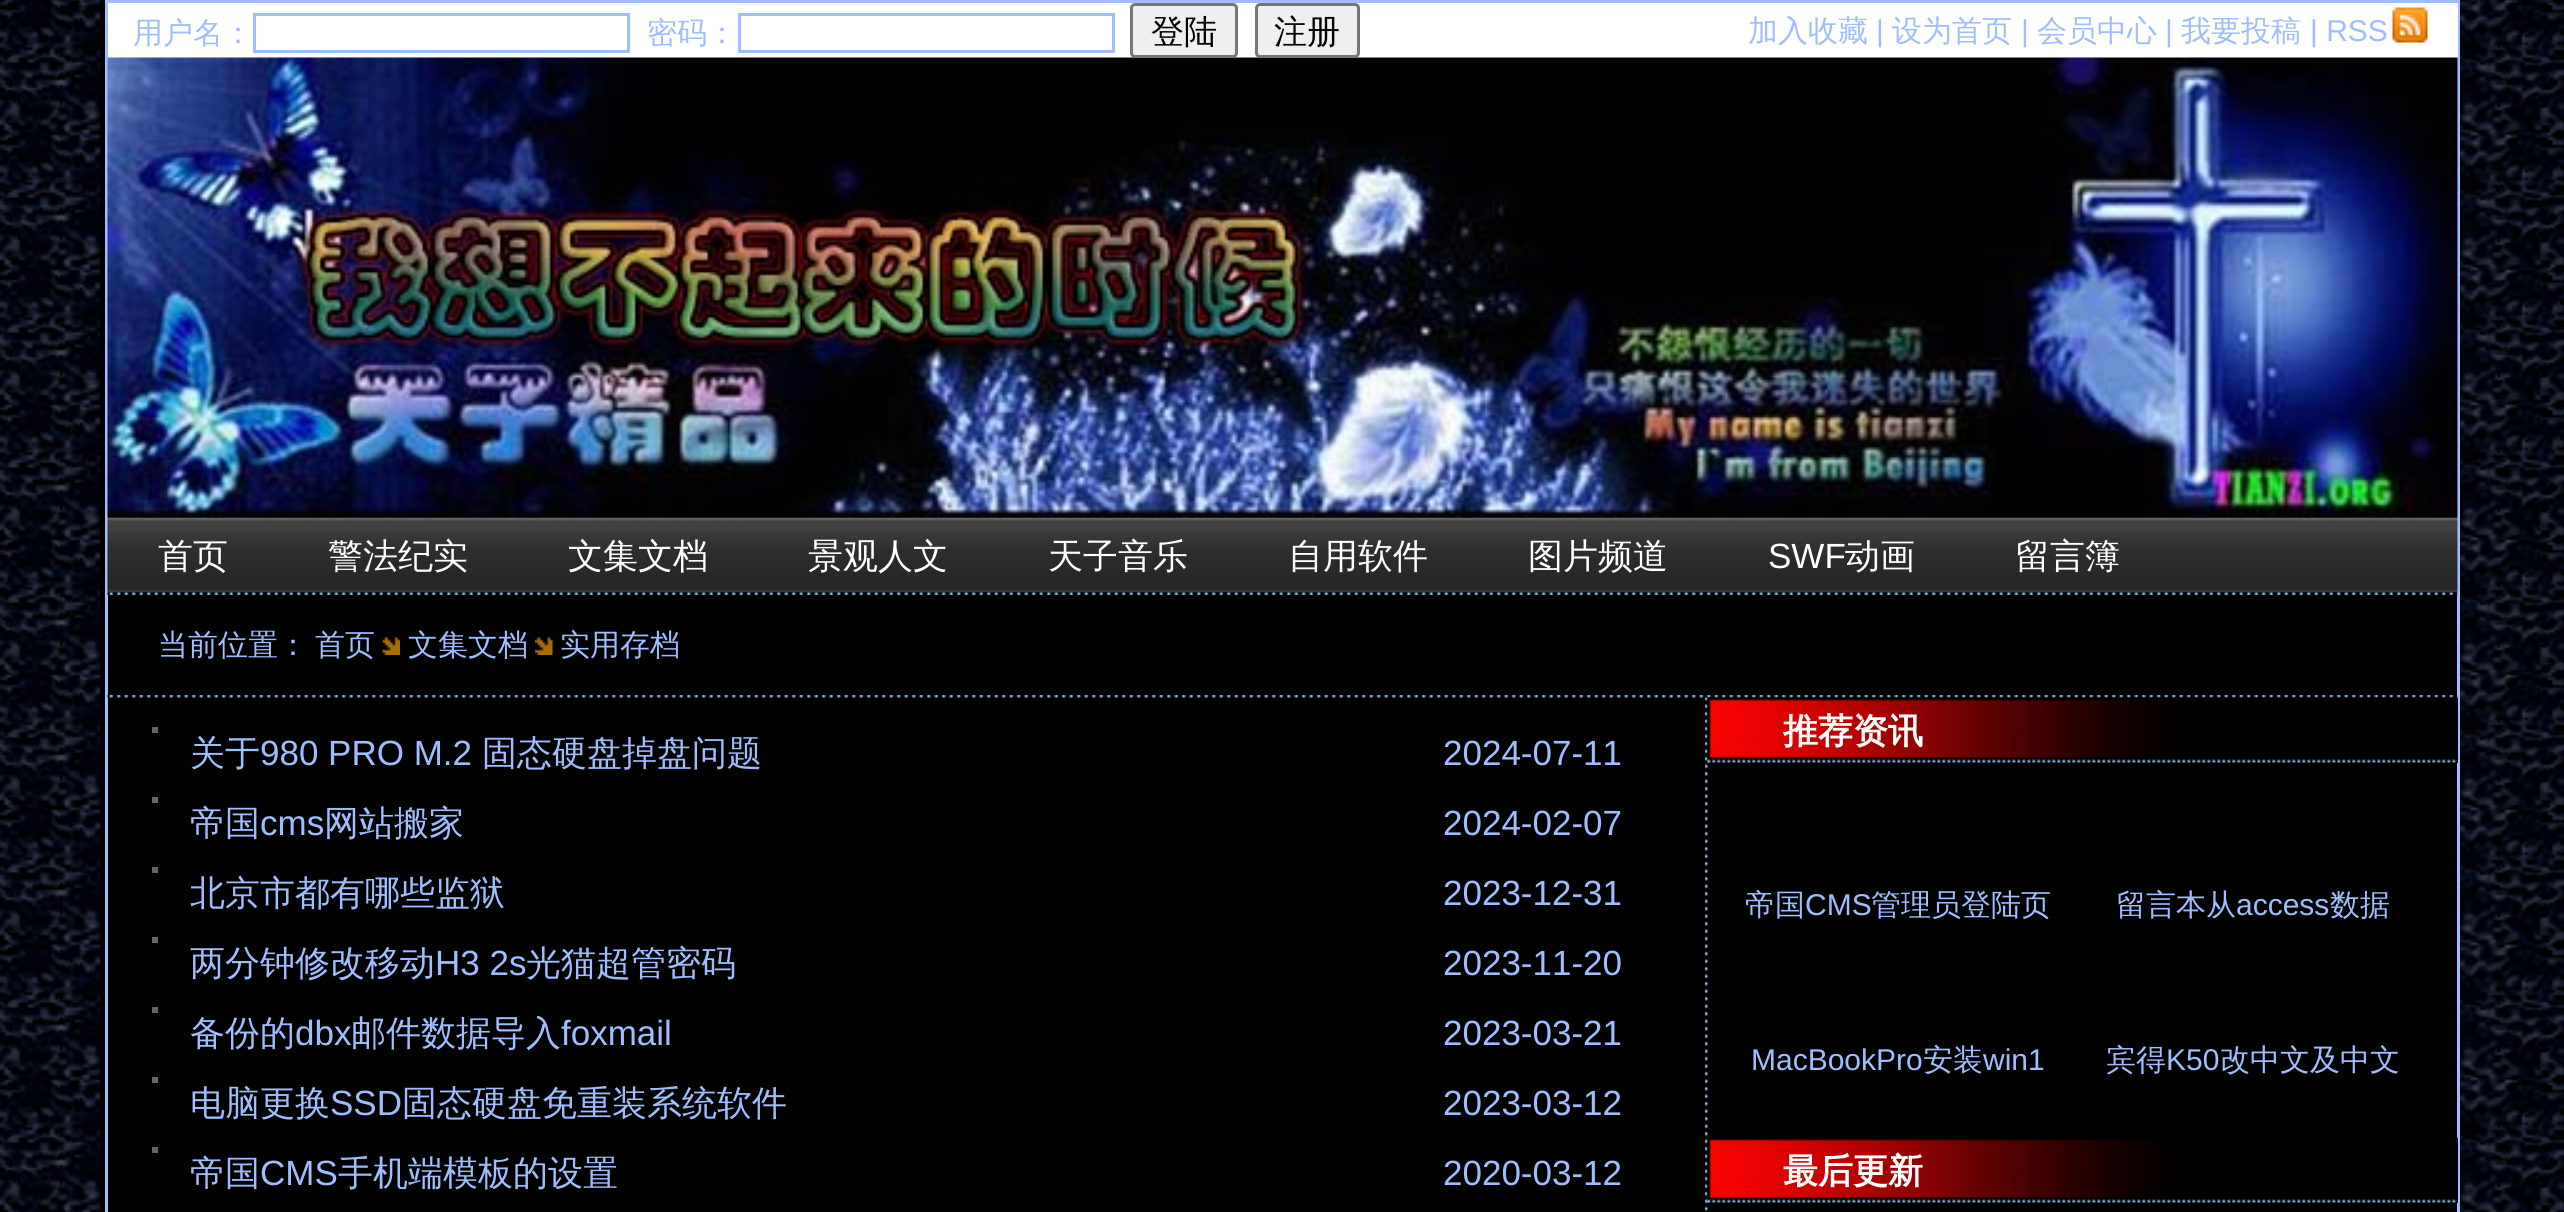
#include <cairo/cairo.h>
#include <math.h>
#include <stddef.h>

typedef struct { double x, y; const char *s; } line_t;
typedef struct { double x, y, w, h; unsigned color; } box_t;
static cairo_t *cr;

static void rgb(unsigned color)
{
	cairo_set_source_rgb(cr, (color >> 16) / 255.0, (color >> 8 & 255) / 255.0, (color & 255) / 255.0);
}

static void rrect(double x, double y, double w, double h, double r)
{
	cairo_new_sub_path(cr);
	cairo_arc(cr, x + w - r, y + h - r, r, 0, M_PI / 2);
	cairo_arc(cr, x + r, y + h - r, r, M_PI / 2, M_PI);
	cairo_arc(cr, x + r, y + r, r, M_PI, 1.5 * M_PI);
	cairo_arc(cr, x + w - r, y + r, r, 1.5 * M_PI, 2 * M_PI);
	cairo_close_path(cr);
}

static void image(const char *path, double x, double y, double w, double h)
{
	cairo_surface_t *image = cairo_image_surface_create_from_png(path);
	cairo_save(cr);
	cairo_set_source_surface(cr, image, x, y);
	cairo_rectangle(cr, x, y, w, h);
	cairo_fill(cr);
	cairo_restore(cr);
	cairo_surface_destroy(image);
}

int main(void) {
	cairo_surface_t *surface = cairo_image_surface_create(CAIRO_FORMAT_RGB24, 2564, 1212);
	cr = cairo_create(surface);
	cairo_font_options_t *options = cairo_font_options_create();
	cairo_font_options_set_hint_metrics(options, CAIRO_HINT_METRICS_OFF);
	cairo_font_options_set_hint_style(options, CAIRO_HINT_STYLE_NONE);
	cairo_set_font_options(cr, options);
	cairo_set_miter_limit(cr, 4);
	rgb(0x000000);
	cairo_paint(cr);
	image("img/1.png", 0, 0, 2564, 1212);
	cairo_rectangle(cr, 106.5, 1.5, 2352, 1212);
	rgb(0xa0bdff);
	cairo_set_line_width(cr, 3);
	cairo_stroke(cr);
	rgb(0xffffff);
	cairo_rectangle(cr, 108, 3, 2350, 55);
	cairo_fill(cr);
	cairo_rectangle(cr, 254.5, 14.5, 374, 37);
	rgb(0xa0bdff);
	cairo_stroke(cr);
	cairo_rectangle(cr, 739.5, 14.5, 374, 37);
	cairo_stroke(cr);
	image("img/4.png", 107, 517, 2351, 76);
	image("img/3.png", 107, 57, 2351, 461);
	rgb(0xefefef);
	rrect(1131.5, 4.5, 105, 52, 3.5);
	cairo_fill_preserve(cr);
	rgb(0x767676);
	cairo_stroke(cr);
	rgb(0xefefef);
	rrect(1256.5, 4.5, 102, 52, 3.5);
	cairo_fill_preserve(cr);
	rgb(0x767676);
	cairo_stroke(cr);
	image("img/2.png", 2392, 7, 36, 36);
	image("img/5.png", 107, 592, 2351, 3);
	image("img/6.png", 382, 637, 18, 18);
	image("img/7.png", 535, 637, 18, 18);
	image("img/8.png", 107, 695, 2351, 3);
	{
		static const box_t items[] = {
			{152, 727, 6, 6, 0x666666},
			{152, 797, 6, 6, 0x666666},
			{152, 867, 6, 6, 0x666666},
			{152, 937, 6, 6, 0x666666},
			{152, 1007, 6, 6, 0x666666},
			{152, 1077, 6, 6, 0x666666},
			{152, 1147, 6, 6, 0x666666},
		};
		for (size_t i = 0; i < sizeof items / sizeof *items; i++) {
			rgb(items[i].color);
			cairo_rectangle(cr, items[i].x, items[i].y, items[i].w, items[i].h);
			cairo_fill(cr);
		}
	}
	image("img/9.png", 1705, 697, 3, 514);
	rgb(0x000000);
	cairo_rectangle(cr, 2457, 698, 1, 65);
	cairo_fill(cr);
	image("img/10.png", 1707, 697, 751, 66);
	cairo_rectangle(cr, 2457, 1138, 1, 65);
	cairo_fill(cr);
	image("img/11.png", 1707, 1137, 751, 66);
	cairo_select_font_face(cr, "WenQuanYi Zen Hei Medium", CAIRO_FONT_SLANT_NORMAL, CAIRO_FONT_WEIGHT_NORMAL);
	cairo_set_font_size(cr, 30);
	rgb(0xa0bdff);
	cairo_move_to(cr, 133, 43);
	cairo_show_text(cr, "用户名：");
	cairo_move_to(cr, 647, 43);
	cairo_show_text(cr, "密码：");
	cairo_set_font_size(cr, 33);
	rgb(0x000000);
	cairo_move_to(cr, 1151, 43);
	cairo_show_text(cr, "登陆");
	cairo_move_to(cr, 1274, 43);
	cairo_show_text(cr, "注册");
	cairo_set_font_size(cr, 30);
	rgb(0xa0bdff);
	cairo_move_to(cr, 1748, 41);
	cairo_show_text(cr, "加入收藏");
	cairo_select_font_face(cr, "Liberation Sans", CAIRO_FONT_SLANT_NORMAL, CAIRO_FONT_WEIGHT_NORMAL);
	cairo_move_to(cr, 1876, 41);
	cairo_show_text(cr, "|");
	cairo_select_font_face(cr, "WenQuanYi Zen Hei Medium", CAIRO_FONT_SLANT_NORMAL, CAIRO_FONT_WEIGHT_NORMAL);
	cairo_move_to(cr, 1892, 41);
	cairo_show_text(cr, "设为首页");
	cairo_select_font_face(cr, "Liberation Sans", CAIRO_FONT_SLANT_NORMAL, CAIRO_FONT_WEIGHT_NORMAL);
	cairo_move_to(cr, 2021, 41);
	cairo_show_text(cr, "|");
	cairo_select_font_face(cr, "WenQuanYi Zen Hei Medium", CAIRO_FONT_SLANT_NORMAL, CAIRO_FONT_WEIGHT_NORMAL);
	cairo_move_to(cr, 2037, 41);
	cairo_show_text(cr, "会员中心");
	cairo_select_font_face(cr, "Liberation Sans", CAIRO_FONT_SLANT_NORMAL, CAIRO_FONT_WEIGHT_NORMAL);
	cairo_move_to(cr, 2165, 41);
	cairo_show_text(cr, "|");
	cairo_select_font_face(cr, "WenQuanYi Zen Hei Medium", CAIRO_FONT_SLANT_NORMAL, CAIRO_FONT_WEIGHT_NORMAL);
	cairo_move_to(cr, 2181, 41);
	cairo_show_text(cr, "我要投稿");
	cairo_select_font_face(cr, "Liberation Sans", CAIRO_FONT_SLANT_NORMAL, CAIRO_FONT_WEIGHT_NORMAL);
	cairo_move_to(cr, 2310, 41);
	cairo_show_text(cr, "| RSS");
	cairo_select_font_face(cr, "WenQuanYi Zen Hei Medium", CAIRO_FONT_SLANT_NORMAL, CAIRO_FONT_WEIGHT_NORMAL);
	cairo_set_font_size(cr, 35);
	rgb(0xffffff);
	{
		static const line_t items[] = {
			{158, 568, "首页"},
			{328, 568, "警法纪实"},
			{568, 568, "文集文档"},
			{808, 568, "景观人文"},
			{1048, 568, "天子音乐"},
			{1288, 568, "自用软件"},
			{1528, 568, "图片频道"},
		};
		for (size_t i = 0; i < sizeof items / sizeof *items; i++) {
			cairo_move_to(cr, items[i].x, items[i].y);
			cairo_show_text(cr, items[i].s);
		}
	}
	cairo_select_font_face(cr, "Liberation Sans", CAIRO_FONT_SLANT_NORMAL, CAIRO_FONT_WEIGHT_NORMAL);
	cairo_move_to(cr, 1768, 568);
	cairo_show_text(cr, "SWF");
	cairo_select_font_face(cr, "WenQuanYi Zen Hei Medium", CAIRO_FONT_SLANT_NORMAL, CAIRO_FONT_WEIGHT_NORMAL);
	cairo_move_to(cr, 1845, 568);
	cairo_show_text(cr, "动画");
	cairo_move_to(cr, 2015, 568);
	cairo_show_text(cr, "留言簿");
	cairo_set_font_size(cr, 30);
	rgb(0xa0bdff);
	{
		static const line_t items[] = {
			{158, 655, "当前位置："},
			{315, 655, "首页"},
			{408, 655, "文集文档"},
			{560, 655, "实用存档"},
		};
		for (size_t i = 0; i < sizeof items / sizeof *items; i++) {
			cairo_move_to(cr, items[i].x, items[i].y);
			cairo_show_text(cr, items[i].s);
		}
	}
	cairo_set_font_size(cr, 35);
	cairo_move_to(cr, 190, 765);
	cairo_show_text(cr, "关于");
	cairo_select_font_face(cr, "Liberation Sans", CAIRO_FONT_SLANT_NORMAL, CAIRO_FONT_WEIGHT_NORMAL);
	cairo_move_to(cr, 260, 765);
	cairo_show_text(cr, "980 PRO M.2");
	cairo_select_font_face(cr, "WenQuanYi Zen Hei Medium", CAIRO_FONT_SLANT_NORMAL, CAIRO_FONT_WEIGHT_NORMAL);
	cairo_move_to(cr, 482, 765);
	cairo_show_text(cr, "固态硬盘掉盘问题");
	cairo_select_font_face(cr, "Liberation Sans", CAIRO_FONT_SLANT_NORMAL, CAIRO_FONT_WEIGHT_NORMAL);
	cairo_move_to(cr, 1443, 765);
	cairo_show_text(cr, "2024-07-11");
	cairo_select_font_face(cr, "WenQuanYi Zen Hei Medium", CAIRO_FONT_SLANT_NORMAL, CAIRO_FONT_WEIGHT_NORMAL);
	cairo_move_to(cr, 190, 835);
	cairo_show_text(cr, "帝国");
	cairo_select_font_face(cr, "Liberation Sans", CAIRO_FONT_SLANT_NORMAL, CAIRO_FONT_WEIGHT_NORMAL);
	cairo_move_to(cr, 260, 835);
	cairo_show_text(cr, "cms");
	cairo_select_font_face(cr, "WenQuanYi Zen Hei Medium", CAIRO_FONT_SLANT_NORMAL, CAIRO_FONT_WEIGHT_NORMAL);
	cairo_move_to(cr, 324, 835);
	cairo_show_text(cr, "网站搬家");
	cairo_select_font_face(cr, "Liberation Sans", CAIRO_FONT_SLANT_NORMAL, CAIRO_FONT_WEIGHT_NORMAL);
	cairo_move_to(cr, 1443, 835);
	cairo_show_text(cr, "2024-02-07");
	cairo_select_font_face(cr, "WenQuanYi Zen Hei Medium", CAIRO_FONT_SLANT_NORMAL, CAIRO_FONT_WEIGHT_NORMAL);
	cairo_move_to(cr, 190, 905);
	cairo_show_text(cr, "北京市都有哪些监狱");
	cairo_select_font_face(cr, "Liberation Sans", CAIRO_FONT_SLANT_NORMAL, CAIRO_FONT_WEIGHT_NORMAL);
	cairo_move_to(cr, 1443, 905);
	cairo_show_text(cr, "2023-12-31");
	cairo_select_font_face(cr, "WenQuanYi Zen Hei Medium", CAIRO_FONT_SLANT_NORMAL, CAIRO_FONT_WEIGHT_NORMAL);
	cairo_move_to(cr, 190, 975);
	cairo_show_text(cr, "两分钟修改移动");
	cairo_select_font_face(cr, "Liberation Sans", CAIRO_FONT_SLANT_NORMAL, CAIRO_FONT_WEIGHT_NORMAL);
	cairo_move_to(cr, 435, 975);
	cairo_show_text(cr, "H3 2s");
	cairo_select_font_face(cr, "WenQuanYi Zen Hei Medium", CAIRO_FONT_SLANT_NORMAL, CAIRO_FONT_WEIGHT_NORMAL);
	cairo_move_to(cr, 526, 975);
	cairo_show_text(cr, "光猫超管密码");
	cairo_select_font_face(cr, "Liberation Sans", CAIRO_FONT_SLANT_NORMAL, CAIRO_FONT_WEIGHT_NORMAL);
	cairo_move_to(cr, 1443, 975);
	cairo_show_text(cr, "2023-11-20");
	cairo_select_font_face(cr, "WenQuanYi Zen Hei Medium", CAIRO_FONT_SLANT_NORMAL, CAIRO_FONT_WEIGHT_NORMAL);
	cairo_move_to(cr, 190, 1045);
	cairo_show_text(cr, "备份的");
	cairo_select_font_face(cr, "Liberation Sans", CAIRO_FONT_SLANT_NORMAL, CAIRO_FONT_WEIGHT_NORMAL);
	cairo_move_to(cr, 295, 1045);
	cairo_show_text(cr, "dbx");
	cairo_select_font_face(cr, "WenQuanYi Zen Hei Medium", CAIRO_FONT_SLANT_NORMAL, CAIRO_FONT_WEIGHT_NORMAL);
	cairo_move_to(cr, 351, 1045);
	cairo_show_text(cr, "邮件数据导入");
	cairo_select_font_face(cr, "Liberation Sans", CAIRO_FONT_SLANT_NORMAL, CAIRO_FONT_WEIGHT_NORMAL);
	cairo_move_to(cr, 561, 1045);
	cairo_show_text(cr, "foxmail");
	cairo_move_to(cr, 1443, 1045);
	cairo_show_text(cr, "2023-03-21");
	cairo_select_font_face(cr, "WenQuanYi Zen Hei Medium", CAIRO_FONT_SLANT_NORMAL, CAIRO_FONT_WEIGHT_NORMAL);
	cairo_move_to(cr, 190, 1115);
	cairo_show_text(cr, "电脑更换");
	cairo_select_font_face(cr, "Liberation Sans", CAIRO_FONT_SLANT_NORMAL, CAIRO_FONT_WEIGHT_NORMAL);
	cairo_move_to(cr, 330, 1115);
	cairo_show_text(cr, "SSD");
	cairo_select_font_face(cr, "WenQuanYi Zen Hei Medium", CAIRO_FONT_SLANT_NORMAL, CAIRO_FONT_WEIGHT_NORMAL);
	cairo_move_to(cr, 402, 1115);
	cairo_show_text(cr, "固态硬盘免重装系统软件");
	cairo_select_font_face(cr, "Liberation Sans", CAIRO_FONT_SLANT_NORMAL, CAIRO_FONT_WEIGHT_NORMAL);
	cairo_move_to(cr, 1443, 1115);
	cairo_show_text(cr, "2023-03-12");
	cairo_select_font_face(cr, "WenQuanYi Zen Hei Medium", CAIRO_FONT_SLANT_NORMAL, CAIRO_FONT_WEIGHT_NORMAL);
	cairo_move_to(cr, 190, 1185);
	cairo_show_text(cr, "帝国");
	cairo_select_font_face(cr, "Liberation Sans", CAIRO_FONT_SLANT_NORMAL, CAIRO_FONT_WEIGHT_NORMAL);
	cairo_move_to(cr, 260, 1185);
	cairo_show_text(cr, "CMS");
	cairo_select_font_face(cr, "WenQuanYi Zen Hei Medium", CAIRO_FONT_SLANT_NORMAL, CAIRO_FONT_WEIGHT_NORMAL);
	cairo_move_to(cr, 338, 1185);
	cairo_show_text(cr, "手机端模板的设置");
	cairo_select_font_face(cr, "Liberation Sans", CAIRO_FONT_SLANT_NORMAL, CAIRO_FONT_WEIGHT_NORMAL);
	cairo_move_to(cr, 1443, 1185);
	cairo_show_text(cr, "2020-03-12");
	cairo_select_font_face(cr, "WenQuanYi Zen Hei", CAIRO_FONT_SLANT_NORMAL, CAIRO_FONT_WEIGHT_BOLD);
	rgb(0xffffff);
	cairo_move_to(cr, 1783, 743);
	cairo_show_text(cr, "推荐资讯");
	cairo_select_font_face(cr, "WenQuanYi Zen Hei Medium", CAIRO_FONT_SLANT_NORMAL, CAIRO_FONT_WEIGHT_NORMAL);
	cairo_set_font_size(cr, 30);
	rgb(0xa0bdff);
	cairo_move_to(cr, 1745, 915);
	cairo_show_text(cr, "帝国");
	cairo_select_font_face(cr, "Liberation Sans", CAIRO_FONT_SLANT_NORMAL, CAIRO_FONT_WEIGHT_NORMAL);
	cairo_move_to(cr, 1805, 915);
	cairo_show_text(cr, "CMS");
	cairo_select_font_face(cr, "WenQuanYi Zen Hei Medium", CAIRO_FONT_SLANT_NORMAL, CAIRO_FONT_WEIGHT_NORMAL);
	cairo_move_to(cr, 1871, 915);
	cairo_show_text(cr, "管理员登陆页");
	cairo_move_to(cr, 2116, 915);
	cairo_show_text(cr, "留言本从");
	cairo_select_font_face(cr, "Liberation Sans", CAIRO_FONT_SLANT_NORMAL, CAIRO_FONT_WEIGHT_NORMAL);
	cairo_move_to(cr, 2236, 915);
	cairo_show_text(cr, "access");
	cairo_select_font_face(cr, "WenQuanYi Zen Hei Medium", CAIRO_FONT_SLANT_NORMAL, CAIRO_FONT_WEIGHT_NORMAL);
	cairo_move_to(cr, 2330, 915);
	cairo_show_text(cr, "数据");
	cairo_select_font_face(cr, "Liberation Sans", CAIRO_FONT_SLANT_NORMAL, CAIRO_FONT_WEIGHT_NORMAL);
	cairo_move_to(cr, 1751, 1070);
	cairo_show_text(cr, "MacBookPro");
	cairo_select_font_face(cr, "WenQuanYi Zen Hei Medium", CAIRO_FONT_SLANT_NORMAL, CAIRO_FONT_WEIGHT_NORMAL);
	cairo_move_to(cr, 1923, 1070);
	cairo_show_text(cr, "安装");
	cairo_select_font_face(cr, "Liberation Sans", CAIRO_FONT_SLANT_NORMAL, CAIRO_FONT_WEIGHT_NORMAL);
	cairo_move_to(cr, 1983, 1070);
	cairo_show_text(cr, "win1");
	cairo_select_font_face(cr, "WenQuanYi Zen Hei Medium", CAIRO_FONT_SLANT_NORMAL, CAIRO_FONT_WEIGHT_NORMAL);
	cairo_move_to(cr, 2106, 1070);
	cairo_show_text(cr, "宾得");
	cairo_select_font_face(cr, "Liberation Sans", CAIRO_FONT_SLANT_NORMAL, CAIRO_FONT_WEIGHT_NORMAL);
	cairo_move_to(cr, 2166, 1070);
	cairo_show_text(cr, "K50");
	cairo_select_font_face(cr, "WenQuanYi Zen Hei Medium", CAIRO_FONT_SLANT_NORMAL, CAIRO_FONT_WEIGHT_NORMAL);
	cairo_move_to(cr, 2220, 1070);
	cairo_show_text(cr, "改中文及中文");
	cairo_select_font_face(cr, "WenQuanYi Zen Hei", CAIRO_FONT_SLANT_NORMAL, CAIRO_FONT_WEIGHT_BOLD);
	cairo_set_font_size(cr, 35);
	rgb(0xffffff);
	cairo_move_to(cr, 1783, 1183);
	cairo_show_text(cr, "最后更新");
	cairo_surface_write_to_png(surface, "page.png");
	cairo_font_options_destroy(options);
	cairo_destroy(cr);
	cairo_surface_destroy(surface);
	return 0;
}
